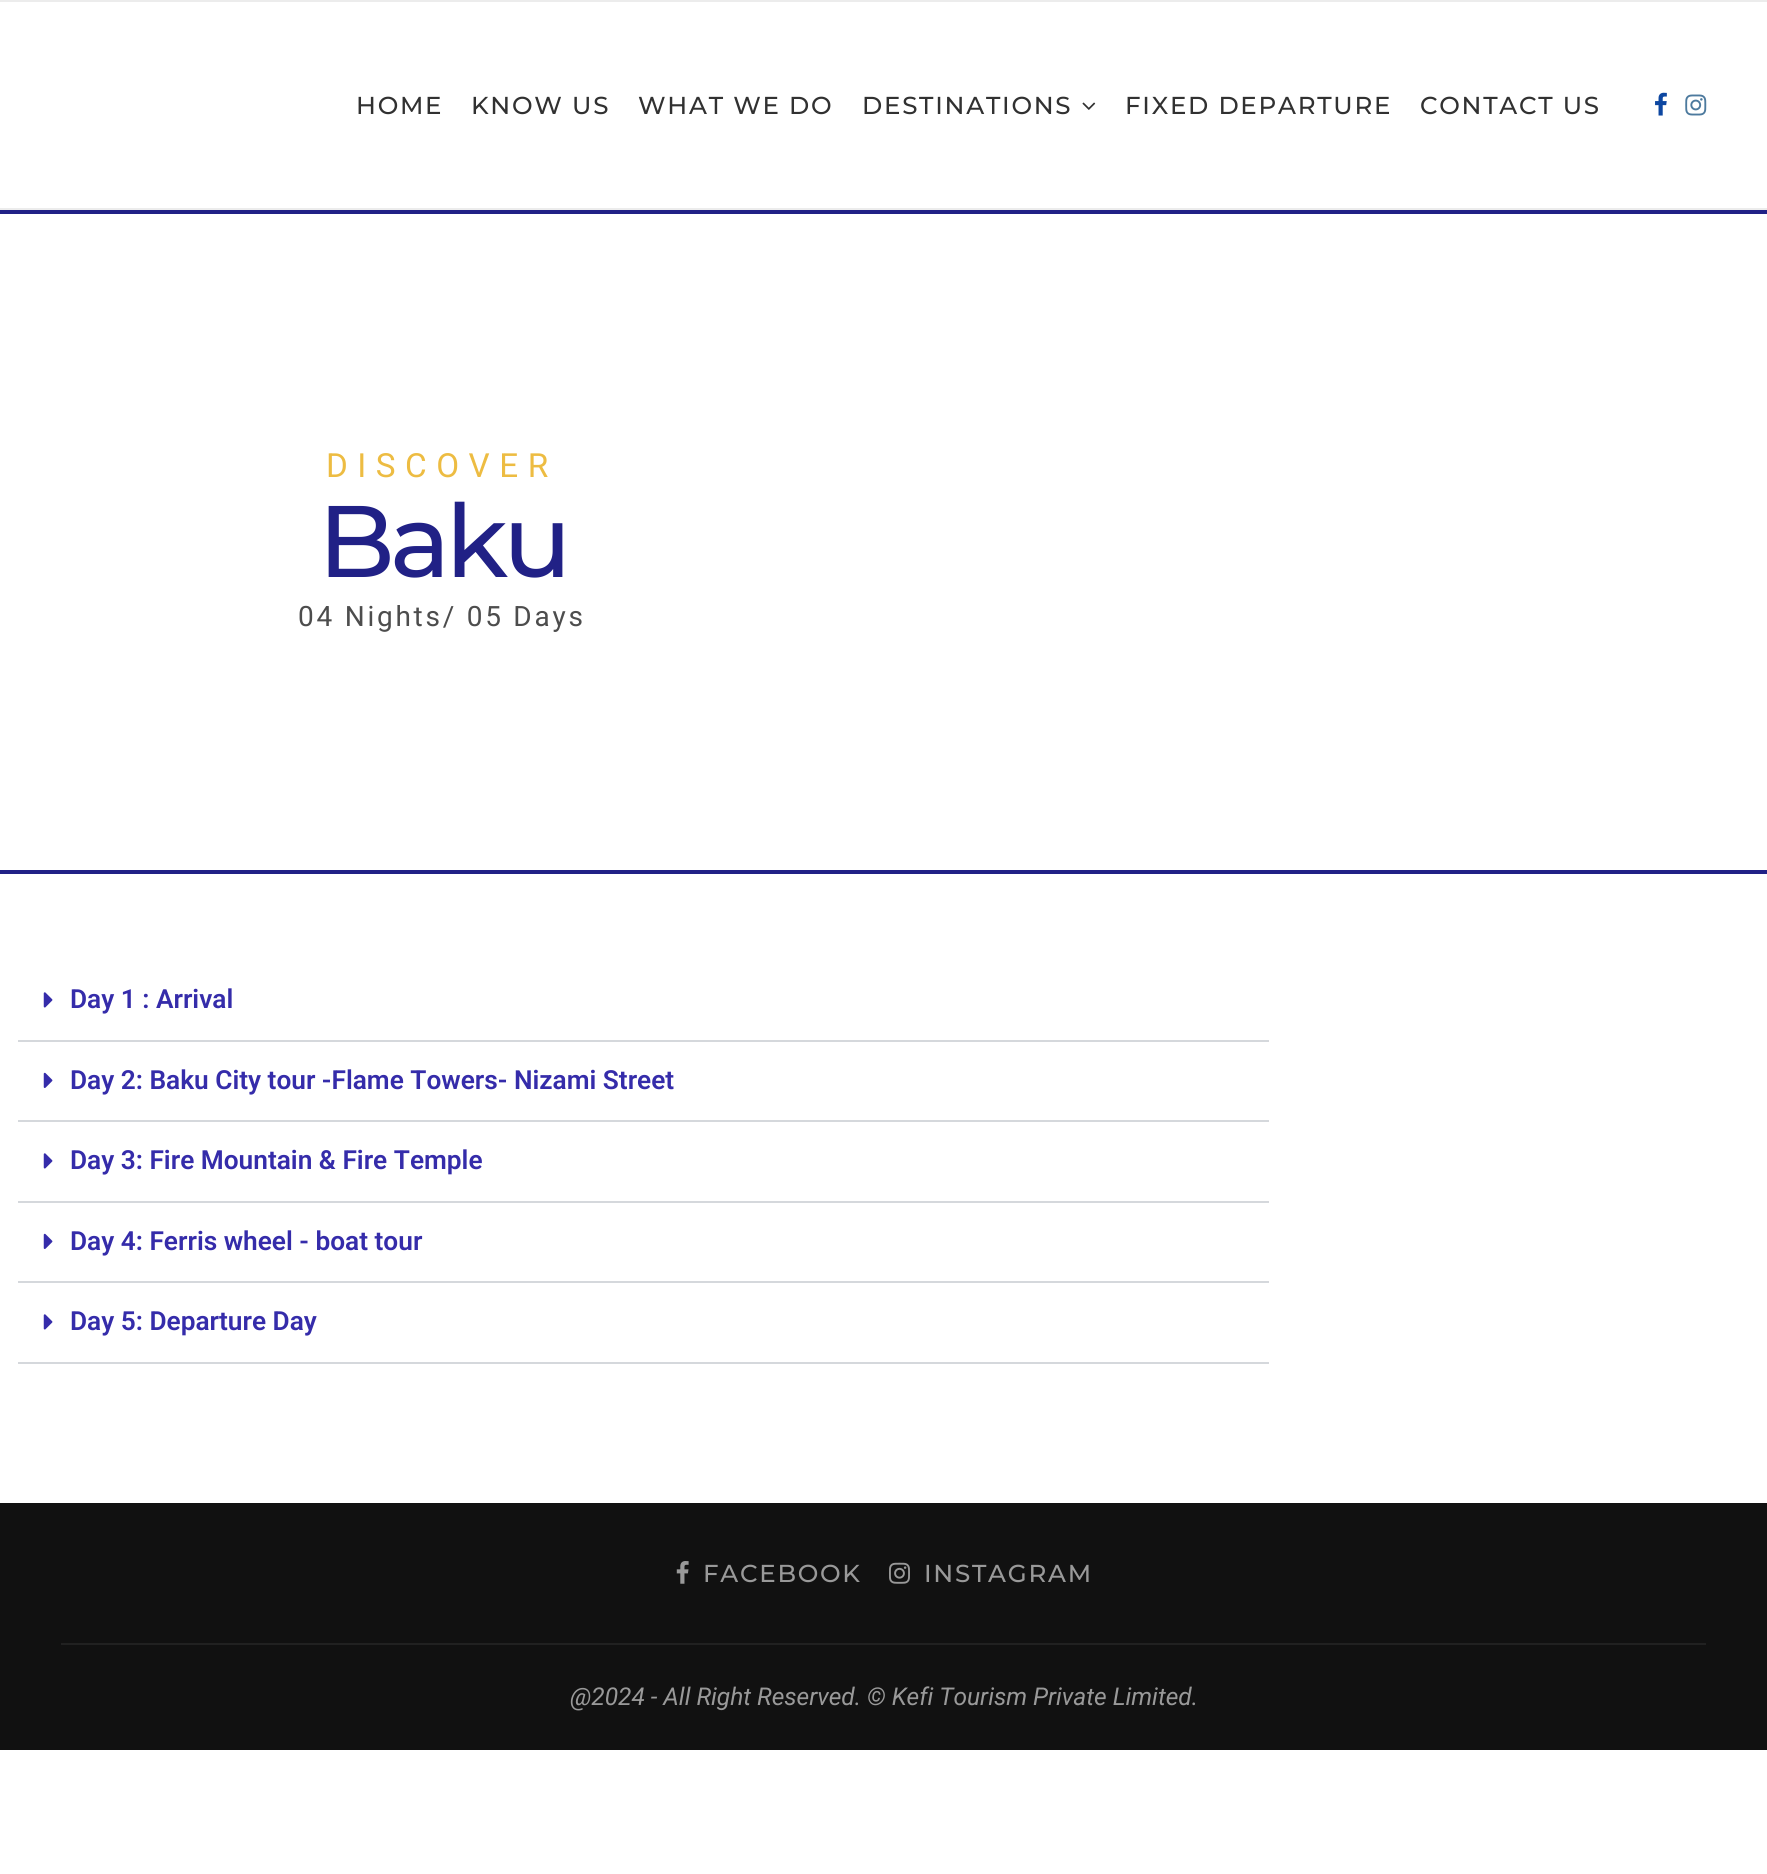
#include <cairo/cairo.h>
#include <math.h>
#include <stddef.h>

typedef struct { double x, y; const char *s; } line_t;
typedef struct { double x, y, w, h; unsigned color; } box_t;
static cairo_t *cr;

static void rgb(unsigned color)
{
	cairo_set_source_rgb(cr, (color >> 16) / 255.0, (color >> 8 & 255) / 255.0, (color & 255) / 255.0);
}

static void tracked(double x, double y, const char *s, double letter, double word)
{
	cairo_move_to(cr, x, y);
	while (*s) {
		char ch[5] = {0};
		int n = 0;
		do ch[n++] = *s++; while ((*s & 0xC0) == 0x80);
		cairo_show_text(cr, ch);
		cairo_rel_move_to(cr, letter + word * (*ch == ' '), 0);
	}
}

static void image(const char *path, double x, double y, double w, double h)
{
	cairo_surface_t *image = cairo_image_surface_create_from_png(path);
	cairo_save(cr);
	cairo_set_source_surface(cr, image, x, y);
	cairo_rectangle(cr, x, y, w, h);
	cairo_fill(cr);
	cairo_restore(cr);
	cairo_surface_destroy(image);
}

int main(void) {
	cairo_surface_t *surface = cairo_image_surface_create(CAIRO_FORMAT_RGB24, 1767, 1874);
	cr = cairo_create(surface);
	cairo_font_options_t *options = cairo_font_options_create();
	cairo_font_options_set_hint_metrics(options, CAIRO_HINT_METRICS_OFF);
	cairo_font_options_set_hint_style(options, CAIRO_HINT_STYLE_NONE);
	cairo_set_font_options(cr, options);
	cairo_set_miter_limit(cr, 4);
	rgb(0xffffff);
	cairo_paint(cr);
	rgb(0xececec);
	cairo_rectangle(cr, 0, 0, 1767, 2);
	cairo_fill(cr);
	cairo_rectangle(cr, 0, 208, 1767, 2);
	cairo_fill(cr);
	image("img/1.png", 1082, 102, 14, 8);
	image("img/2.png", 1655, 92, 12, 24);
	image("img/3.png", 1685, 94, 22, 22);
	{
		static const box_t items[] = {
			{0, 210, 1767, 4, 0x212186},
			{0, 870, 1767, 4, 0x212186},
			{18, 1040, 1251, 2, 0xd5d8dc},
		};
		for (size_t i = 0; i < sizeof items / sizeof *items; i++) {
			rgb(items[i].color);
			cairo_rectangle(cr, items[i].x, items[i].y, items[i].w, items[i].h);
			cairo_fill(cr);
		}
	}
	image("img/4.png", 43, 992, 10, 16);
	cairo_rectangle(cr, 18, 1120, 1251, 2);
	cairo_fill(cr);
	image("img/5.png", 43, 1072, 10, 16);
	cairo_rectangle(cr, 18, 1201, 1251, 2);
	cairo_fill(cr);
	image("img/4.png", 43, 1153, 10, 16);
	cairo_rectangle(cr, 18, 1281, 1251, 2);
	cairo_fill(cr);
	image("img/5.png", 43, 1233, 10, 16);
	cairo_rectangle(cr, 18, 1362, 1251, 2);
	cairo_fill(cr);
	image("img/4.png", 43, 1314, 10, 16);
	rgb(0x111111);
	cairo_rectangle(cr, 0, 1503, 1767, 247);
	cairo_fill(cr);
	rgb(0x212121);
	cairo_rectangle(cr, 61, 1643, 1645, 2);
	cairo_fill(cr);
	image("img/6.png", 676, 1561, 13, 23);
	image("img/7.png", 889, 1562, 21, 22);
	cairo_select_font_face(cr, "Montserrat Medium", CAIRO_FONT_SLANT_NORMAL, CAIRO_FONT_WEIGHT_NORMAL);
	cairo_set_font_size(cr, 24.5);
	rgb(0x313131);
	{
		static const line_t items[] = {
			{356, 114, "HOME"},
			{471, 114, "KNOW US"},
			{638, 114, "WHAT WE DO"},
			{862, 114, "DESTINATIONS"},
			{1125, 114, "FIXED DEPARTURE"},
			{1420, 114, "CONTACT US"},
		};
		for (size_t i = 0; i < sizeof items / sizeof *items; i++) {
			tracked(items[i].x, items[i].y, items[i].s, 1.75, 0);
		}
	}
	cairo_select_font_face(cr, "Roboto", CAIRO_FONT_SLANT_NORMAL, CAIRO_FONT_WEIGHT_NORMAL);
	cairo_set_font_size(cr, 33.25);
	rgb(0xedbc42);
	tracked(326, 477, "DISCOVER", 9.5, 0);
	cairo_select_font_face(cr, "Montserrat Medium", CAIRO_FONT_SLANT_NORMAL, CAIRO_FONT_WEIGHT_NORMAL);
	cairo_set_font_size(cr, 101.5);
	rgb(0x212186);
	tracked(318, 577, "Baku", -5, 0);
	cairo_select_font_face(cr, "Roboto", CAIRO_FONT_SLANT_NORMAL, CAIRO_FONT_WEIGHT_NORMAL);
	cairo_set_font_size(cr, 28);
	rgb(0x4d4d4d);
	tracked(298, 626, "04 Nights/ 05 Days", 2.75, 0);
	cairo_select_font_face(cr, "Roboto SemiBold", CAIRO_FONT_SLANT_NORMAL, CAIRO_FONT_WEIGHT_NORMAL);
	cairo_set_font_size(cr, 26.25);
	rgb(0x352caa);
	{
		static const line_t items[] = {
			{70, 1008, "Day 1 : Arrival"},
			{70, 1089, "Day 2: Baku City tour -Flame Towers- Nizami Street"},
			{70, 1169, "Day 3: Fire Mountain & Fire Temple"},
			{70, 1250, "Day 4: Ferris wheel - boat tour"},
			{70, 1330, "Day 5: Departure Day"},
		};
		for (size_t i = 0; i < sizeof items / sizeof *items; i++) {
			cairo_move_to(cr, items[i].x, items[i].y);
			cairo_show_text(cr, items[i].s);
		}
	}
	cairo_select_font_face(cr, "Montserrat Medium", CAIRO_FONT_SLANT_NORMAL, CAIRO_FONT_WEIGHT_NORMAL);
	cairo_set_font_size(cr, 24.5);
	rgb(0x999999);
	tracked(703, 1582, "FACEBOOK", 1.75, 0);
	tracked(924, 1582, "INSTAGRAM", 1.75, 0);
	cairo_select_font_face(cr, "Roboto", CAIRO_FONT_SLANT_ITALIC, CAIRO_FONT_WEIGHT_NORMAL);
	cairo_move_to(cr, 570, 1705);
	cairo_show_text(cr, "@2024 - All Right Reserved. © Kefi Tourism Private Limited.");
	cairo_surface_write_to_png(surface, "page.png");
	cairo_font_options_destroy(options);
	cairo_destroy(cr);
	cairo_surface_destroy(surface);
	return 0;
}
